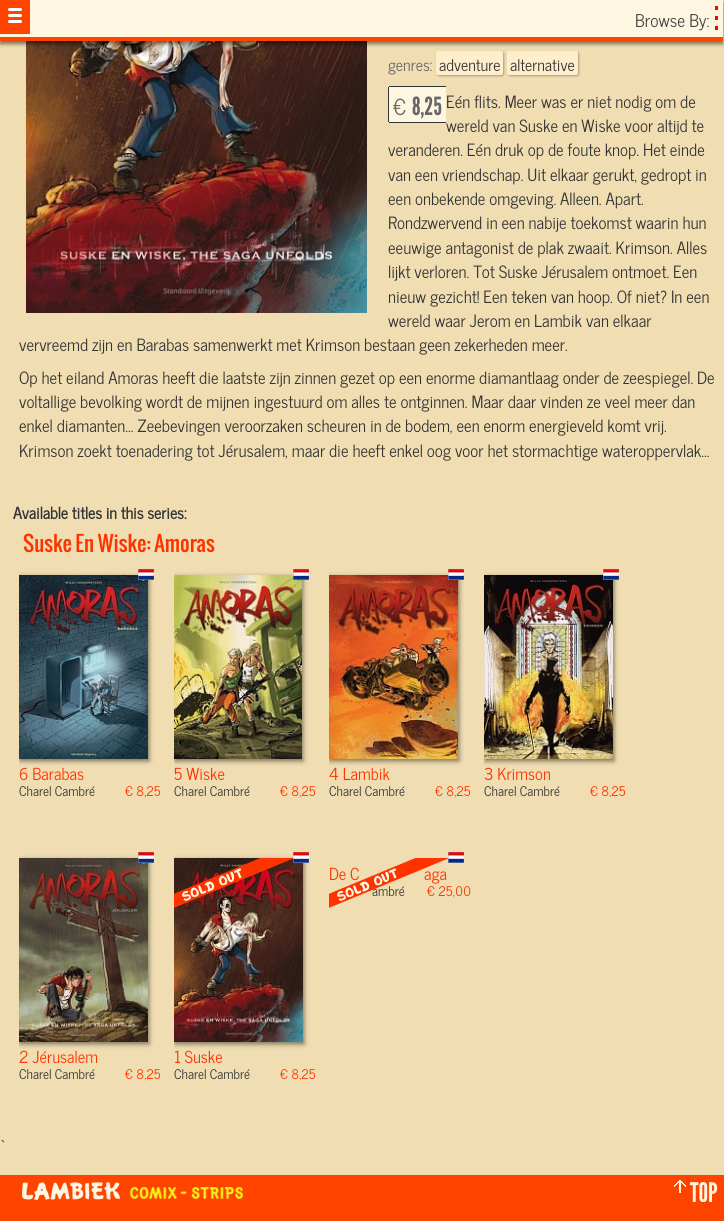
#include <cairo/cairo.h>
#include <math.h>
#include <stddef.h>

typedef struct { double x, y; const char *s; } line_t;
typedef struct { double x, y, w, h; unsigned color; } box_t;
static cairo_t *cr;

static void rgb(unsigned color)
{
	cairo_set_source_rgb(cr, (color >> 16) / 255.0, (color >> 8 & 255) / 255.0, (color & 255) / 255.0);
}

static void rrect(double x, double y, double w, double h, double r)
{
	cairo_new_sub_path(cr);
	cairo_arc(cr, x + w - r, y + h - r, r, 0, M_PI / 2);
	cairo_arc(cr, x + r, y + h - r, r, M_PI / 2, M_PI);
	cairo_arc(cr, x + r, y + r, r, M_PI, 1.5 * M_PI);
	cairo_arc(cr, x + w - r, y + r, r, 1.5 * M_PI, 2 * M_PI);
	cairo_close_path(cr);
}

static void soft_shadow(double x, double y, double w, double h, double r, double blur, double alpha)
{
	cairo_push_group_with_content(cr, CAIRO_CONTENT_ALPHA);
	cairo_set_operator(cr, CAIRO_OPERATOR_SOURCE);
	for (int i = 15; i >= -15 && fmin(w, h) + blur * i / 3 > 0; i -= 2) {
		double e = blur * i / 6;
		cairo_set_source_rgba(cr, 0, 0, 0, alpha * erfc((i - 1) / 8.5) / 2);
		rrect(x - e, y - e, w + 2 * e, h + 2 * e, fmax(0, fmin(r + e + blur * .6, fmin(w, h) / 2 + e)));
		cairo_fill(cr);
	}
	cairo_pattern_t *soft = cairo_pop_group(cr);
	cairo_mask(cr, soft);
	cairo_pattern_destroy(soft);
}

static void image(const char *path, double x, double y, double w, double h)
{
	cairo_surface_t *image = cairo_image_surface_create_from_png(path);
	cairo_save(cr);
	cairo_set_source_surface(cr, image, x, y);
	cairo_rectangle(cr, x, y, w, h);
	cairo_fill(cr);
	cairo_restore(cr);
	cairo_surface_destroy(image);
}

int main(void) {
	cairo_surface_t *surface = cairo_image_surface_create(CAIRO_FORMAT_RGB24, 724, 1221);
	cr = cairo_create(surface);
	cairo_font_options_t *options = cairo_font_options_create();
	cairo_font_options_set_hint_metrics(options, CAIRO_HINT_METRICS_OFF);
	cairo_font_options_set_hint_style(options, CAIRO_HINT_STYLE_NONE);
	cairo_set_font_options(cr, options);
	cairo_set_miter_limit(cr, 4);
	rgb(0xf0ddb2);
	cairo_paint(cr);
	rgb(0xeddba9);
	cairo_rectangle(cr, 723, 0, 1, 32);
	cairo_fill(cr);
	image("img/1.png", 26, 41, 341, 272);
	rgb(0x000000);
	soft_shadow(0, 3, 723, 41, 0, 2, 0.5);
	{
		static const box_t items[] = {
			{0, 0, 723, 37, 0xfdf6e1},
			{0, 37, 723, 4, 0xff4400},
			{0, 0, 30, 34, 0xff4400},
		};
		for (size_t i = 0; i < sizeof items / sizeof *items; i++) {
			rgb(items[i].color);
			cairo_rectangle(cr, items[i].x, items[i].y, items[i].w, items[i].h);
			cairo_fill(cr);
		}
	}
	rgb(0xffffff);
	rrect(8, 8, 14, 3, 1.5);
	cairo_fill(cr);
	rrect(8, 14, 14, 3, 1.5);
	cairo_fill(cr);
	rrect(8, 20, 14, 3, 1.5);
	cairo_fill(cr);
	{
		static const box_t items[] = {
			{715, 26, 3, 4, 0xff0000},
			{715, 16, 3, 4, 0xff0000},
			{715, 6, 3, 4, 0xff0000},
		};
		for (size_t i = 0; i < sizeof items / sizeof *items; i++) {
			rgb(items[i].color);
			cairo_rectangle(cr, items[i].x, items[i].y, items[i].w, items[i].h);
			cairo_fill(cr);
		}
	}
	rgb(0x000000);
	soft_shadow(437, 52, 67, 24, 2, 1, 0.3);
	rgb(0xffeecc);
	rrect(436, 51, 67, 24, 2);
	cairo_fill(cr);
	rgb(0x000000);
	soft_shadow(508, 52, 71, 24, 2, 1, 0.3);
	rgb(0xffeecc);
	rrect(507, 51, 71, 24, 2);
	cairo_fill(cr);
	cairo_save(cr);
	cairo_rectangle(cr, 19, 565, 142, 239);
	cairo_clip(cr);
	rgb(0x000000);
	soft_shadow(20, 577, 129, 184, 0, 2.5, 0.5);
	cairo_restore(cr);
	image("img/2.png", 19, 575, 129, 184);
	image("img/3.png", 138, 569, 16, 11);
	cairo_save(cr);
	cairo_rectangle(cr, 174, 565, 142, 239);
	cairo_clip(cr);
	rgb(0x000000);
	soft_shadow(175, 577, 128, 184, 0, 2.5, 0.5);
	cairo_restore(cr);
	image("img/4.png", 174, 575, 128, 184);
	image("img/3.png", 293, 569, 16, 11);
	cairo_save(cr);
	cairo_rectangle(cr, 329, 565, 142, 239);
	cairo_clip(cr);
	rgb(0x000000);
	soft_shadow(330, 577, 129, 184, 0, 2.5, 0.5);
	cairo_restore(cr);
	image("img/5.png", 329, 575, 129, 184);
	image("img/3.png", 448, 569, 16, 11);
	cairo_save(cr);
	cairo_rectangle(cr, 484, 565, 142, 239);
	cairo_clip(cr);
	rgb(0x000000);
	soft_shadow(485, 577, 129, 184, 0, 2.5, 0.5);
	cairo_restore(cr);
	image("img/6.png", 484, 575, 129, 184);
	image("img/3.png", 603, 569, 16, 11);
	rgb(0xc3c3c3);
	cairo_rectangle(cr, 329, 858, 1, 1);
	cairo_fill(cr);
	image("img/3.png", 448, 852, 16, 11);
	cairo_save(cr);
	cairo_rectangle(cr, 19, 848, 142, 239);
	cairo_clip(cr);
	rgb(0x000000);
	soft_shadow(20, 860, 129, 184, 0, 2.5, 0.5);
	cairo_restore(cr);
	image("img/8.png", 19, 858, 129, 184);
	image("img/3.png", 138, 852, 16, 11);
	cairo_save(cr);
	cairo_rectangle(cr, 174, 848, 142, 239);
	cairo_clip(cr);
	rgb(0x000000);
	soft_shadow(175, 860, 129, 184, 0, 2.5, 0.5);
	cairo_restore(cr);
	image("img/9.png", 174, 858, 129, 184);
	image("img/10.png", 174, 858, 119, 50);
	image("img/3.png", 293, 852, 16, 11);
	rgb(0xff4400);
	cairo_rectangle(cr, 0, 1175, 724, 46);
	cairo_fill(cr);
	image("img/11.png", 22, 1182, 98, 18);
	image("img/12.png", 130, 1187, 113, 12);
	image("img/13.png", 674, 1180, 12, 13);
	cairo_select_font_face(cr, "News Cycle Medium", CAIRO_FONT_SLANT_NORMAL, CAIRO_FONT_WEIGHT_NORMAL);
	cairo_set_font_size(cr, 17.5);
	rgb(0x444444);
	cairo_move_to(cr, 635, 27);
	cairo_show_text(cr, "Browse By:");
	cairo_set_font_size(cr, 16);
	rgb(0x666666);
	cairo_move_to(cr, 388, 71);
	cairo_show_text(cr, "genres:");
	rgb(0x333333);
	cairo_move_to(cr, 439, 71);
	cairo_show_text(cr, "adventure");
	cairo_move_to(cr, 510, 71);
	cairo_show_text(cr, "alternative");
	cairo_set_font_size(cr, 16.8);
	{
		static const line_t items[] = {
			{446, 108, "Eén flits. Meer was er niet nodig om de"},
			{446, 132, "wereld van Suske en Wiske voor altijd te"},
			{388, 156, "veranderen. Eén druk op de foute knop. Het einde"},
			{388, 181, "van een vriendschap. Uit elkaar gerukt, gedropt in"},
			{388, 205, "een onbekende omgeving. Alleen. Apart."},
			{388, 229, "Rondzwervend in een nabije toekomst waarin hun"},
			{388, 254, "eeuwige antagonist de plak zwaait. Krimson. Alles"},
			{388, 278, "lijkt verloren. Tot Suske Jérusalem ontmoet. Een"},
			{388, 303, "nieuw gezicht! Een teken van hoop. Of niet? In een"},
			{388, 327, "wereld waar Jerom en Lambik van elkaar"},
			{19, 351, "vervreemd zijn en Barabas samenwerkt met Krimson bestaan geen zekerheden meer."},
			{19, 384, "Op het eiland Amoras heeft die laatste zijn zinnen gezet op een enorme diamantlaag onder de zeespiegel. De"},
			{19, 408, "voltallige bevolking wordt de mijnen ingestuurd om alles te ontginnen. Maar daar vinden ze veel meer dan"},
			{19, 432, "enkel diamanten… Zeebevingen veroorzaken scheuren in de bodem, een enorm energieveld komt vrij."},
			{19, 457, "Krimson zoekt toenadering tot Jérusalem, maar die heeft enkel oog voor het stormachtige wateroppervlak…"},
		};
		for (size_t i = 0; i < sizeof items / sizeof *items; i++) {
			cairo_move_to(cr, items[i].x, items[i].y);
			cairo_show_text(cr, items[i].s);
		}
	}
	rgb(0xfdf6e1);
	cairo_new_path(cr);
	cairo_move_to(cr, 390, 86);
	cairo_line_to(cr, 446, 86);
	cairo_line_to(cr, 446, 123);
	cairo_line_to(cr, 390, 123);
	cairo_curve_to(cr, 389, 123, 388, 122, 388, 121);
	cairo_line_to(cr, 388, 88);
	cairo_curve_to(cr, 388, 87, 389, 86, 390, 86);
	cairo_close_path(cr);
	cairo_fill(cr);
	{
		static const box_t items[] = {
			{389, 86, 57, 1, 0x333333},
			{389, 122, 57, 1, 0x333333},
			{388, 87, 1, 35, 0x333333},
		};
		for (size_t i = 0; i < sizeof items / sizeof *items; i++) {
			rgb(items[i].color);
			cairo_rectangle(cr, items[i].x, items[i].y, items[i].w, items[i].h);
			cairo_fill(cr);
		}
	}
	cairo_set_font_size(cr, 22);
	rgb(0x666666);
	cairo_move_to(cr, 393, 115);
	cairo_show_text(cr, "€");
	cairo_select_font_face(cr, "League Gothic", CAIRO_FONT_SLANT_NORMAL, CAIRO_FONT_WEIGHT_NORMAL);
	cairo_set_font_size(cr, 25);
	cairo_move_to(cr, 412, 115);
	cairo_show_text(cr, "8,25");
	cairo_select_font_face(cr, "News Cycle", CAIRO_FONT_SLANT_NORMAL, CAIRO_FONT_WEIGHT_BOLD);
	cairo_set_font_size(cr, 16);
	rgb(0x333333);
	cairo_move_to(cr, 13, 519);
	cairo_show_text(cr, "Available titles in this series:");
	cairo_select_font_face(cr, "Oswald", CAIRO_FONT_SLANT_NORMAL, CAIRO_FONT_WEIGHT_NORMAL);
	cairo_set_font_size(cr, 20.75);
	rgb(0xff3300);
	cairo_move_to(cr, 23, 552);
	cairo_show_text(cr, "Suske En Wiske: Amoras");
	cairo_select_font_face(cr, "News Cycle Medium", CAIRO_FONT_SLANT_NORMAL, CAIRO_FONT_WEIGHT_NORMAL);
	cairo_set_font_size(cr, 16.5);
	cairo_move_to(cr, 19, 780);
	cairo_show_text(cr, "6 Barabas");
	cairo_set_font_size(cr, 13.25);
	rgb(0x333333);
	cairo_move_to(cr, 19, 796);
	cairo_show_text(cr, "Charel Cambré");
	rgb(0xff3300);
	cairo_move_to(cr, 125, 796);
	cairo_show_text(cr, "€ 8,25");
	cairo_set_font_size(cr, 16.5);
	cairo_move_to(cr, 174, 780);
	cairo_show_text(cr, "5 Wiske");
	cairo_set_font_size(cr, 13.25);
	rgb(0x333333);
	cairo_move_to(cr, 174, 796);
	cairo_show_text(cr, "Charel Cambré");
	rgb(0xff3300);
	cairo_move_to(cr, 280, 796);
	cairo_show_text(cr, "€ 8,25");
	cairo_set_font_size(cr, 16.5);
	cairo_move_to(cr, 329, 780);
	cairo_show_text(cr, "4 Lambik");
	cairo_set_font_size(cr, 13.25);
	rgb(0x333333);
	cairo_move_to(cr, 329, 796);
	cairo_show_text(cr, "Charel Cambré");
	rgb(0xff3300);
	cairo_move_to(cr, 435, 796);
	cairo_show_text(cr, "€ 8,25");
	cairo_set_font_size(cr, 16.5);
	cairo_move_to(cr, 484, 780);
	cairo_show_text(cr, "3 Krimson");
	cairo_set_font_size(cr, 13.25);
	rgb(0x333333);
	cairo_move_to(cr, 484, 796);
	cairo_show_text(cr, "Charel Cambré");
	rgb(0xff3300);
	cairo_move_to(cr, 590, 796);
	cairo_show_text(cr, "€ 8,25");
	cairo_set_font_size(cr, 16.5);
	cairo_move_to(cr, 329, 880);
	cairo_show_text(cr, "De C");
	cairo_move_to(cr, 424, 880);
	cairo_show_text(cr, "aga");
	cairo_set_font_size(cr, 13.25);
	rgb(0x333333);
	cairo_move_to(cr, 372, 896);
	cairo_show_text(cr, "ambré");
	rgb(0xff3300);
	cairo_move_to(cr, 427, 896);
	cairo_show_text(cr, "€ 25,00");
	image("img/7.png", 329, 858, 119, 50);
	cairo_set_font_size(cr, 16.5);
	cairo_move_to(cr, 19, 1063);
	cairo_show_text(cr, "2 Jérusalem");
	cairo_set_font_size(cr, 13.25);
	rgb(0x333333);
	cairo_move_to(cr, 19, 1079);
	cairo_show_text(cr, "Charel Cambré");
	rgb(0xff3300);
	cairo_move_to(cr, 125, 1079);
	cairo_show_text(cr, "€ 8,25");
	cairo_set_font_size(cr, 16.5);
	cairo_move_to(cr, 174, 1063);
	cairo_show_text(cr, "1 Suske");
	cairo_set_font_size(cr, 13.25);
	rgb(0x333333);
	cairo_move_to(cr, 174, 1079);
	cairo_show_text(cr, "Charel Cambré");
	rgb(0xff3300);
	cairo_move_to(cr, 280, 1079);
	cairo_show_text(cr, "€ 8,25");
	cairo_set_font_size(cr, 16);
	rgb(0x333333);
	cairo_move_to(cr, 0, 1151);
	cairo_show_text(cr, "`");
	cairo_select_font_face(cr, "League Gothic", CAIRO_FONT_SLANT_NORMAL, CAIRO_FONT_WEIGHT_NORMAL);
	cairo_set_font_size(cr, 27);
	rgb(0xfdf6e1);
	cairo_move_to(cr, 690, 1202);
	cairo_show_text(cr, "TOP");
	rgb(0xff4400);
	cairo_rectangle(cr, 702, 1202, 3, 1);
	cairo_fill(cr);
	cairo_surface_write_to_png(surface, "page.png");
	cairo_font_options_destroy(options);
	cairo_destroy(cr);
	cairo_surface_destroy(surface);
	return 0;
}
